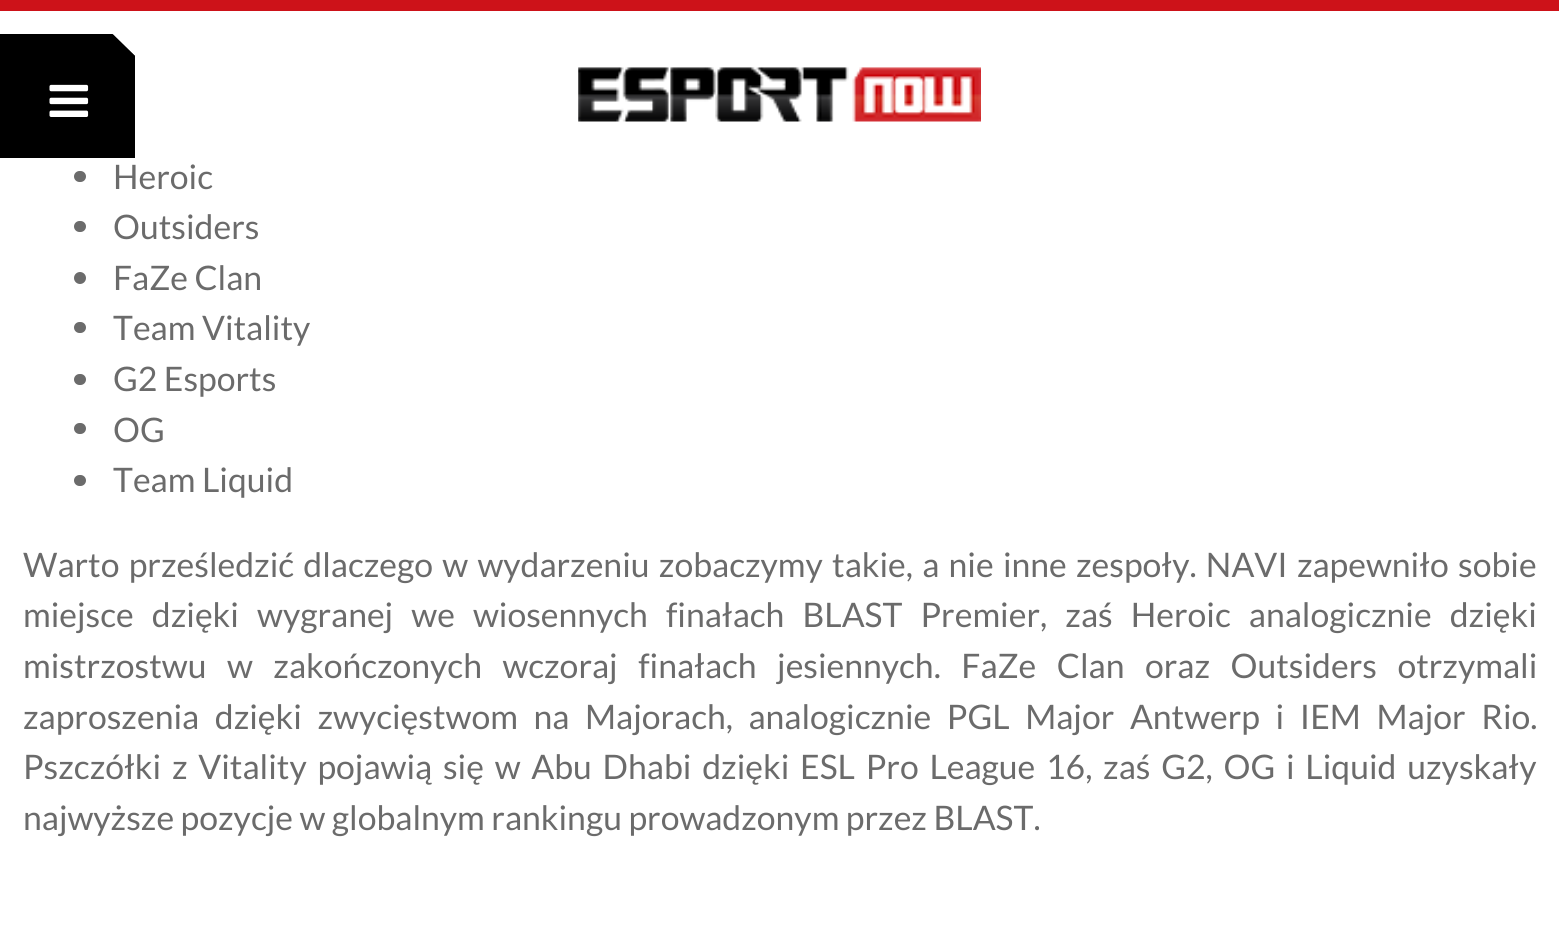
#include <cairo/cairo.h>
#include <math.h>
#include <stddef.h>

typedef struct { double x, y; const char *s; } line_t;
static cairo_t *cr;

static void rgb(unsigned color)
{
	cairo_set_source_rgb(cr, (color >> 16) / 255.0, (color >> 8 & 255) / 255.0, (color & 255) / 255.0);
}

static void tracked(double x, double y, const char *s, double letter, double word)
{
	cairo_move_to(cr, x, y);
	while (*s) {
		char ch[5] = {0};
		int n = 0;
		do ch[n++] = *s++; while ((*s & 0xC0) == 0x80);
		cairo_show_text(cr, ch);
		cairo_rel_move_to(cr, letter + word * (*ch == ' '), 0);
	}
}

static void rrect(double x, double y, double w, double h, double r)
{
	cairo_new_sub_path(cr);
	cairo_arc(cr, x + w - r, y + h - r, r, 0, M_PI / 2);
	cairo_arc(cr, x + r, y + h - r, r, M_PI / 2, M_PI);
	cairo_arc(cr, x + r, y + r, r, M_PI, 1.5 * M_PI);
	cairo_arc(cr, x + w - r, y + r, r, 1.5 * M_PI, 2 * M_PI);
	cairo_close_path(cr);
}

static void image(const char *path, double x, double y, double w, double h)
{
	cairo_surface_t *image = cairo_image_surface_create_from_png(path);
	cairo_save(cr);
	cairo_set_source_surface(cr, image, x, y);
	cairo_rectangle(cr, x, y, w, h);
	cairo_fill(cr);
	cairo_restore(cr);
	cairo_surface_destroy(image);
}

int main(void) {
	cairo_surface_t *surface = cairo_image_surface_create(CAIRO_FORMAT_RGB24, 1559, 943);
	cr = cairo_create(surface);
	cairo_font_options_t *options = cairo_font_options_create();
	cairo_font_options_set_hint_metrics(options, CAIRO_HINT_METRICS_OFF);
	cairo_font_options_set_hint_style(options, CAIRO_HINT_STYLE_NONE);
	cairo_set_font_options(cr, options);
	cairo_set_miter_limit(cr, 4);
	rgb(0xffffff);
	cairo_paint(cr);
	rgb(0xcd1219);
	cairo_rectangle(cr, 0, 0, 1559, 11);
	cairo_fill(cr);
	rgb(0x000000);
	cairo_rectangle(cr, 0, 34, 135, 124);
	cairo_fill(cr);
	rgb(0xffffff);
	cairo_new_path(cr);
	cairo_move_to(cr, 135, 34);
	cairo_line_to(cr, 135, 56);
	cairo_line_to(cr, 112.5, 34);
	cairo_close_path(cr);
	cairo_fill(cr);
	rgb(0x000000);
	cairo_new_path(cr);
	cairo_move_to(cr, 135, 56);
	cairo_line_to(cr, 112.5, 56);
	cairo_line_to(cr, 112.5, 34);
	cairo_close_path(cr);
	cairo_fill(cr);
	image("img/1.png", 49, 84, 40, 33);
	image("img/2.png", 578, 67, 403, 55);
	rgb(0x6b6b6b);
	rrect(74, 171, 12, 11, 5.5);
	cairo_fill(cr);
	rrect(74, 221, 12, 11, 5.5);
	cairo_fill(cr);
	cairo_arc(cr, 80, 278, 6, 0, 2 * M_PI);
	cairo_fill(cr);
	rrect(74, 322, 12, 11, 5.5);
	cairo_fill(cr);
	rrect(74, 374, 12, 11, 5.5);
	cairo_fill(cr);
	rrect(74, 423, 12, 11, 5.5);
	cairo_fill(cr);
	rrect(74, 475, 12, 11, 5.5);
	cairo_fill(cr);
	cairo_select_font_face(cr, "Lato", CAIRO_FONT_SLANT_NORMAL, CAIRO_FONT_WEIGHT_NORMAL);
	cairo_set_font_size(cr, 33.75);
	{
		static const line_t items[] = {
			{113, 189, "Heroic"},
			{113, 239, "Outsiders"},
			{113, 290, "FaZe Clan"},
			{113, 340, "Team Vitality"},
			{113, 391, "G2 Esports"},
			{113, 442, "OG"},
			{113, 492, "Team Liquid"},
		};
		for (size_t i = 0; i < sizeof items / sizeof *items; i++) {
			cairo_move_to(cr, items[i].x, items[i].y);
			cairo_show_text(cr, items[i].s);
		}
	}
	tracked(23, 577, "Warto prześledzić dlaczego w wydarzeniu zobaczymy takie, a nie inne zespoły. NAVI zapewniło sobie", 0, 2.75);
	tracked(23, 627, "miejsce dzięki wygranej we wiosennych finałach BLAST Premier, zaś Heroic analogicznie dzięki", 0, 11.6);
	tracked(23, 678, "mistrzostwu w zakończonych wczoraj finałach jesiennych. FaZe Clan oraz Outsiders otrzymali", 0, 14);
	tracked(23, 729, "zaproszenia dzięki zwycięstwom na Majorach, analogicznie PGL Major Antwerp i IEM Major Rio.", 0, 9.1);
	tracked(23, 779, "Pszczółki z Vitality pojawią się w Abu Dhabi dzięki ESL Pro League 16, zaś G2, OG i Liquid uzyskały", 0, 4.25);
	cairo_move_to(cr, 23, 830);
	cairo_show_text(cr, "najwyższe pozycje w globalnym rankingu prowadzonym przez BLAST.");
	cairo_surface_write_to_png(surface, "page.png");
	cairo_font_options_destroy(options);
	cairo_destroy(cr);
	cairo_surface_destroy(surface);
	return 0;
}
